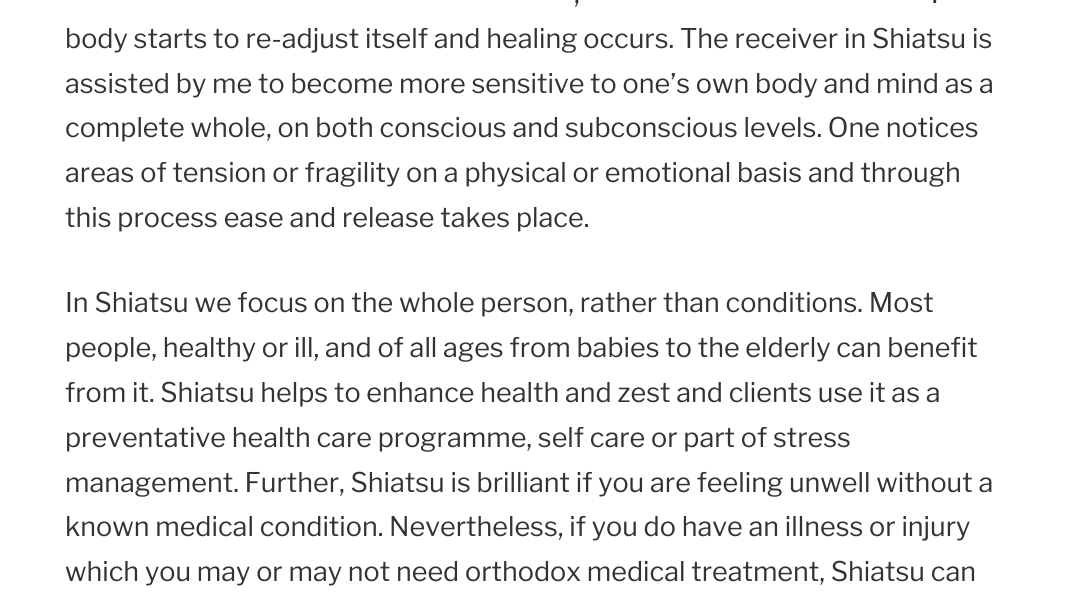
#include <cairo/cairo.h>
#include <math.h>
#include <stddef.h>

typedef struct { double x, y; const char *s; } line_t;
static cairo_t *cr;

static void rgb(unsigned color)
{
	cairo_set_source_rgb(cr, (color >> 16) / 255.0, (color >> 8 & 255) / 255.0, (color & 255) / 255.0);
}

int main(void) {
	cairo_surface_t *surface = cairo_image_surface_create(CAIRO_FORMAT_RGB24, 1071, 594);
	cr = cairo_create(surface);
	cairo_font_options_t *options = cairo_font_options_create();
	cairo_font_options_set_hint_metrics(options, CAIRO_HINT_METRICS_OFF);
	cairo_font_options_set_hint_style(options, CAIRO_HINT_STYLE_NONE);
	cairo_set_font_options(cr, options);
	cairo_set_miter_limit(cr, 4);
	rgb(0xffffff);
	cairo_paint(cr);
	cairo_select_font_face(cr, "Libre Franklin", CAIRO_FONT_SLANT_NORMAL, CAIRO_FONT_WEIGHT_NORMAL);
	cairo_set_font_size(cr, 27);
	rgb(0x333333);
	{
		static const line_t items[] = {
			{574, 3, ","},
			{932, 3, "."},
			{65, 48, "body starts to re-adjust itself and healing occurs. The receiver in Shiatsu is"},
			{65, 93, "assisted by me to become more sensitive to one’s own body and mind as a"},
			{65, 137, "complete whole, on both conscious and subconscious levels. One notices"},
			{65, 182, "areas of tension or fragility on a physical or emotional basis and through"},
			{65, 227, "this process ease and release takes place."},
			{65, 312, "In Shiatsu we focus on the whole person, rather than conditions. Most"},
			{65, 357, "people, healthy or ill, and of all ages from babies to the elderly can benefit"},
			{65, 402, "from it. Shiatsu helps to enhance health and zest and clients use it as a"},
			{65, 447, "preventative health care programme, self care or part of stress"},
			{65, 492, "management. Further, Shiatsu is brilliant if you are feeling unwell without a"},
			{65, 536, "known medical condition. Nevertheless, if you do have an illness or injury"},
			{65, 581, "which you may or may not need orthodox medical treatment, Shiatsu can"},
		};
		for (size_t i = 0; i < sizeof items / sizeof *items; i++) {
			cairo_move_to(cr, items[i].x, items[i].y);
			cairo_show_text(cr, items[i].s);
		}
	}
	cairo_surface_write_to_png(surface, "page.png");
	cairo_font_options_destroy(options);
	cairo_destroy(cr);
	cairo_surface_destroy(surface);
	return 0;
}
